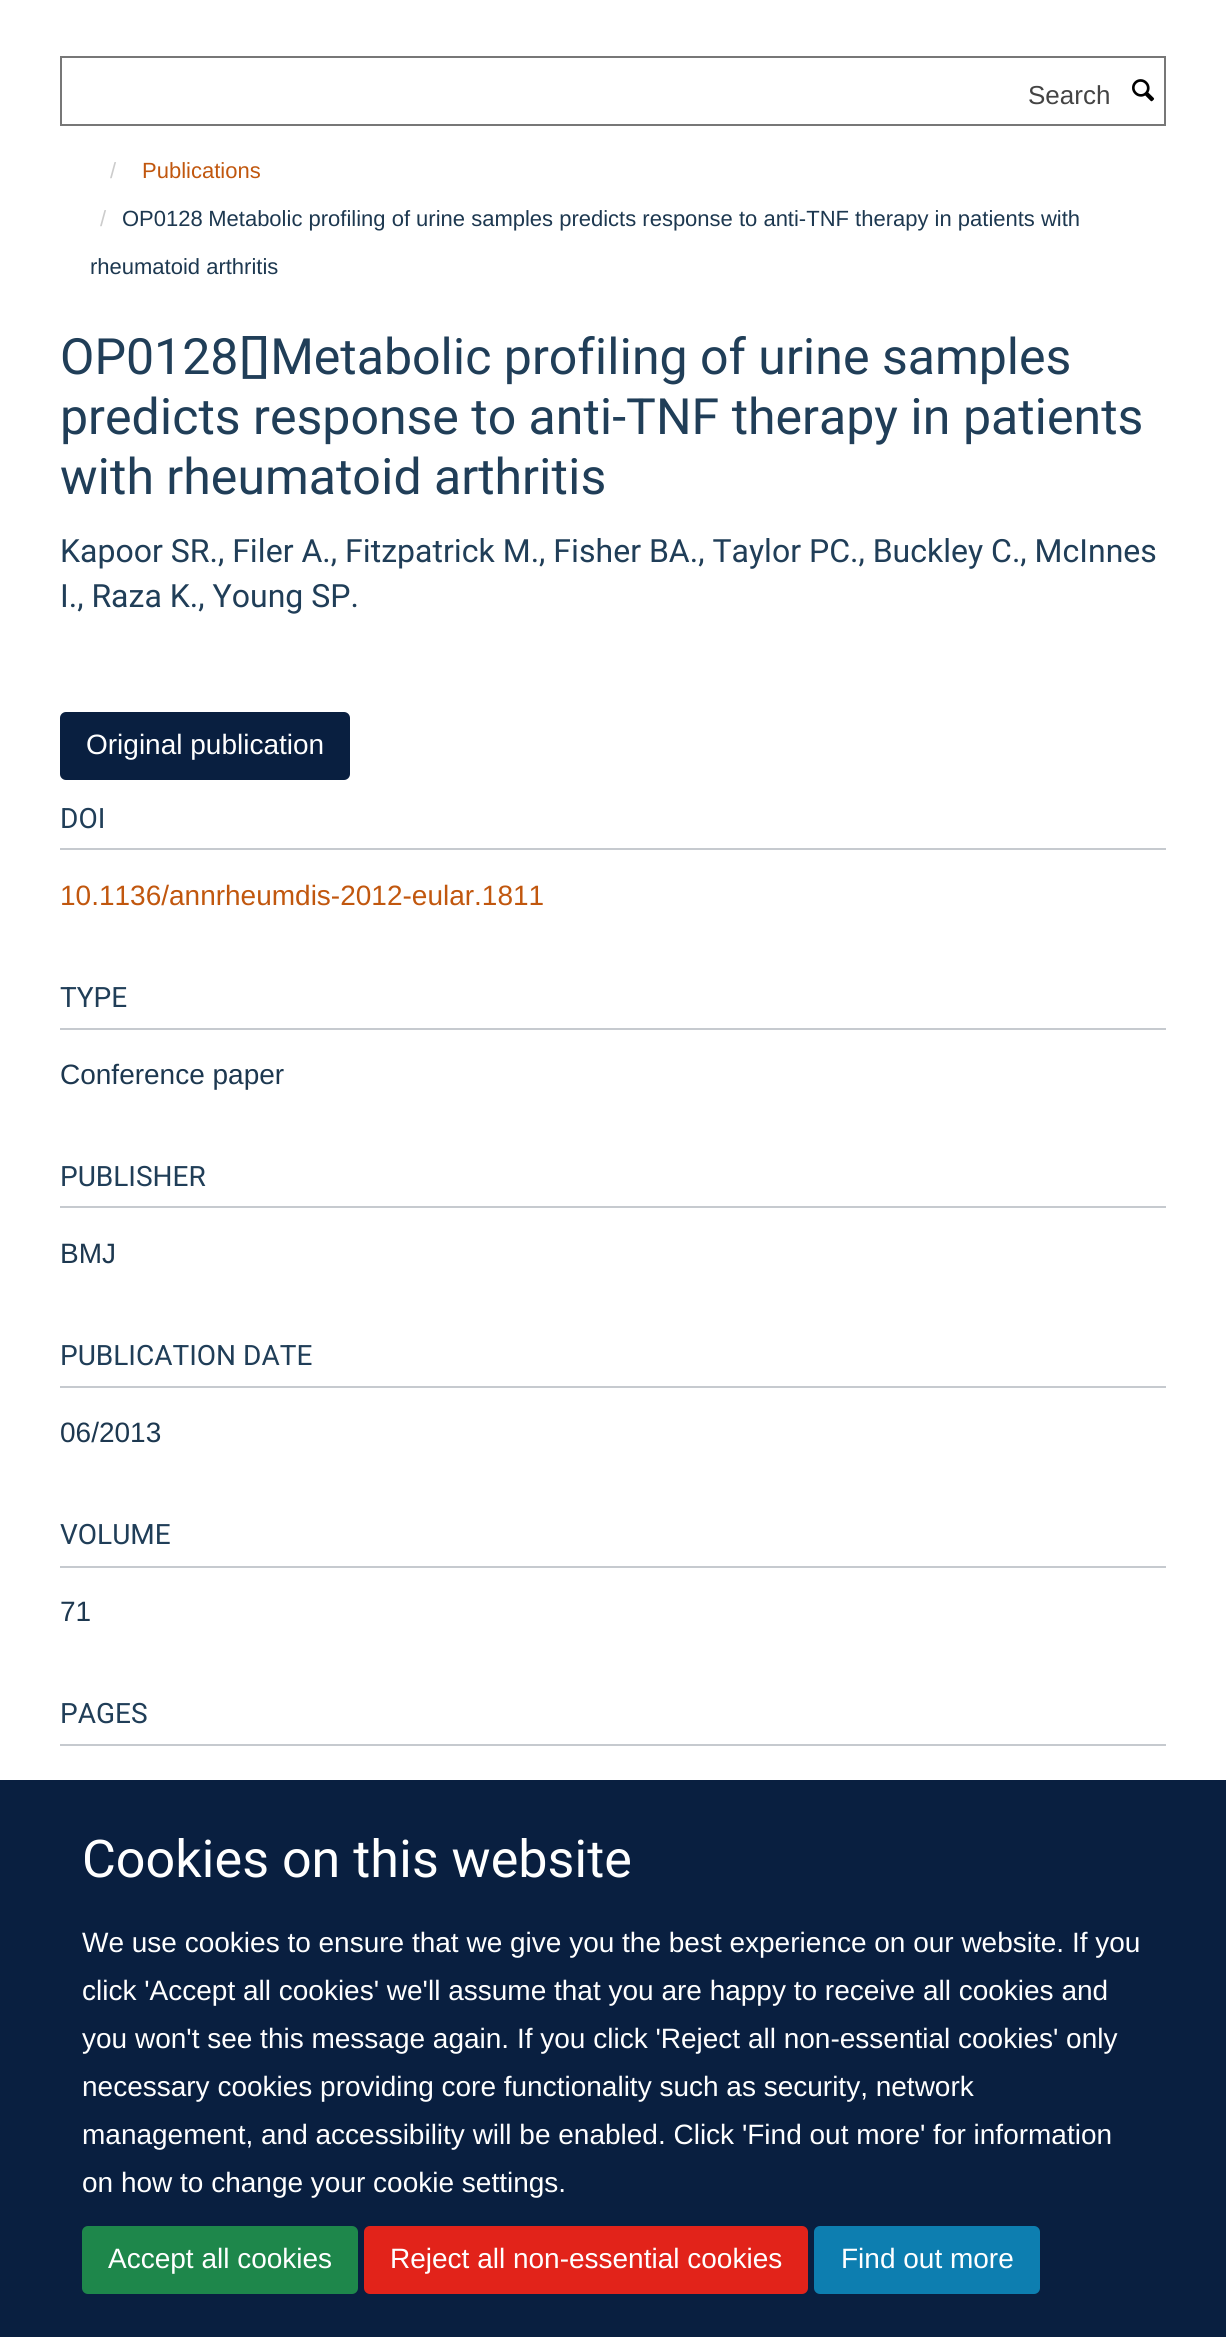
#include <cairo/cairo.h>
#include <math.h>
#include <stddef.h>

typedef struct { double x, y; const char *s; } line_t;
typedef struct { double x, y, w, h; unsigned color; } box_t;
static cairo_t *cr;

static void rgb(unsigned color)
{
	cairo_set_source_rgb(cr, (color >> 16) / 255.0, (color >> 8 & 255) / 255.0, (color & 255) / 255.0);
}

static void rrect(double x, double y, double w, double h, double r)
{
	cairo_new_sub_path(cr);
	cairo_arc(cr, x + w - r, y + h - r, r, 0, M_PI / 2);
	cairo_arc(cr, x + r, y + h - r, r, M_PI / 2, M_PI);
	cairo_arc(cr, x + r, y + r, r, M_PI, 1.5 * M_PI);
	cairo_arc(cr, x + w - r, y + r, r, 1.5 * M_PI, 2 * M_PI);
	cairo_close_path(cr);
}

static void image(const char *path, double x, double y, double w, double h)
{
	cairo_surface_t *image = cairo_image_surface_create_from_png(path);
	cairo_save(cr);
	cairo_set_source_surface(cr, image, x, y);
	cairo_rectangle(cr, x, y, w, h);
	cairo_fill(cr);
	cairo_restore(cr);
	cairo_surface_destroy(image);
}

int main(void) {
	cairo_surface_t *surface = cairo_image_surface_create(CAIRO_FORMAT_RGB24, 1226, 2337);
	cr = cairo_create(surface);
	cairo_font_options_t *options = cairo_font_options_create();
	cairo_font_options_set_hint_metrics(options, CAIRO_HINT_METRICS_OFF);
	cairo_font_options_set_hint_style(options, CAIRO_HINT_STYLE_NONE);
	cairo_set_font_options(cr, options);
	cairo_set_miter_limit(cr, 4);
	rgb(0xffffff);
	cairo_paint(cr);
	cairo_rectangle(cr, 61, 57, 1104, 68);
	rgb(0x777777);
	cairo_stroke(cr);
	image("img/1.png", 1132, 79, 23, 23);
	rgb(0x091f40);
	rrect(61, 713, 288, 66, 5);
	cairo_fill_preserve(cr);
	cairo_stroke(cr);
	{
		static const box_t items[] = {
			{60, 848, 1106, 2, 0xc6cacf},
			{60, 1028, 1106, 2, 0xc6cacf},
			{60, 1206, 1106, 2, 0xc6cacf},
			{60, 1386, 1106, 2, 0xc6cacf},
			{60, 1566, 1106, 2, 0xc6cacf},
			{60, 1744, 1106, 2, 0xc6cacf},
			{0, 1780, 1226, 557, 0x091f40},
		};
		for (size_t i = 0; i < sizeof items / sizeof *items; i++) {
			rgb(items[i].color);
			cairo_rectangle(cr, items[i].x, items[i].y, items[i].w, items[i].h);
			cairo_fill(cr);
		}
	}
	rgb(0x1e874b);
	rrect(83, 2227, 274, 66, 5);
	cairo_fill_preserve(cr);
	cairo_stroke(cr);
	rgb(0xe2231a);
	rrect(365, 2227, 442, 66, 5);
	cairo_fill_preserve(cr);
	cairo_stroke(cr);
	rgb(0x0d7eb0);
	rrect(815, 2227, 224, 66, 5);
	cairo_fill_preserve(cr);
	cairo_stroke(cr);
	cairo_select_font_face(cr, "Liberation Sans", CAIRO_FONT_SLANT_NORMAL, CAIRO_FONT_WEIGHT_NORMAL);
	cairo_set_font_size(cr, 26);
	rgb(0x444444);
	cairo_move_to(cr, 1028, 104);
	cairo_show_text(cr, "Search");
	cairo_set_font_size(cr, 22);
	rgb(0xcccccc);
	cairo_move_to(cr, 110, 178);
	cairo_show_text(cr, "/");
	rgb(0xc1570e);
	cairo_move_to(cr, 142, 178);
	cairo_show_text(cr, "Publications");
	rgb(0xcccccc);
	cairo_move_to(cr, 100, 226);
	cairo_show_text(cr, "/");
	rgb(0x1d3850);
	cairo_move_to(cr, 122, 226);
	cairo_show_text(cr, "OP0128 Metabolic profiling of urine samples predicts response to anti-TNF therapy in patients with");
	cairo_move_to(cr, 90, 274);
	cairo_show_text(cr, "rheumatoid arthritis");
	cairo_select_font_face(cr, "Heebo", CAIRO_FONT_SLANT_NORMAL, CAIRO_FONT_WEIGHT_NORMAL);
	cairo_set_font_size(cr, 50);
	rgb(0x203e58);
	{
		static const line_t items[] = {
			{60, 374, "OP0128 Metabolic profiling of urine samples"},
			{60, 434, "predicts response to anti-TNF therapy in patients"},
			{60, 494, "with rheumatoid arthritis"},
		};
		for (size_t i = 0; i < sizeof items / sizeof *items; i++) {
			cairo_move_to(cr, items[i].x, items[i].y);
			cairo_show_text(cr, items[i].s);
		}
	}
	cairo_set_font_size(cr, 32);
	cairo_move_to(cr, 60, 562);
	cairo_show_text(cr, "Kapoor SR., Filer A., Fitzpatrick M., Fisher BA., Taylor PC., Buckley C., McInnes");
	cairo_move_to(cr, 60, 607);
	cairo_show_text(cr, "I., Raza K., Young SP.");
	cairo_select_font_face(cr, "Liberation Sans", CAIRO_FONT_SLANT_NORMAL, CAIRO_FONT_WEIGHT_NORMAL);
	cairo_set_font_size(cr, 28);
	rgb(0xffffff);
	cairo_move_to(cr, 86, 754);
	cairo_show_text(cr, "Original publication");
	cairo_select_font_face(cr, "Heebo", CAIRO_FONT_SLANT_NORMAL, CAIRO_FONT_WEIGHT_NORMAL);
	rgb(0x203e58);
	cairo_move_to(cr, 60, 828);
	cairo_show_text(cr, "DOI");
	cairo_select_font_face(cr, "Liberation Sans", CAIRO_FONT_SLANT_NORMAL, CAIRO_FONT_WEIGHT_NORMAL);
	rgb(0xc1570e);
	cairo_move_to(cr, 60, 905);
	cairo_show_text(cr, "10.1136/annrheumdis-2012-eular.1811");
	cairo_select_font_face(cr, "Heebo", CAIRO_FONT_SLANT_NORMAL, CAIRO_FONT_WEIGHT_NORMAL);
	rgb(0x203e58);
	cairo_move_to(cr, 60, 1007);
	cairo_show_text(cr, "TYPE");
	cairo_select_font_face(cr, "Liberation Sans", CAIRO_FONT_SLANT_NORMAL, CAIRO_FONT_WEIGHT_NORMAL);
	rgb(0x1d3850);
	cairo_move_to(cr, 60, 1084);
	cairo_show_text(cr, "Conference paper");
	cairo_select_font_face(cr, "Heebo", CAIRO_FONT_SLANT_NORMAL, CAIRO_FONT_WEIGHT_NORMAL);
	rgb(0x203e58);
	cairo_move_to(cr, 60, 1186);
	cairo_show_text(cr, "PUBLISHER");
	cairo_select_font_face(cr, "Liberation Sans", CAIRO_FONT_SLANT_NORMAL, CAIRO_FONT_WEIGHT_NORMAL);
	rgb(0x1d3850);
	cairo_move_to(cr, 60, 1263);
	cairo_show_text(cr, "BMJ");
	cairo_select_font_face(cr, "Heebo", CAIRO_FONT_SLANT_NORMAL, CAIRO_FONT_WEIGHT_NORMAL);
	rgb(0x203e58);
	cairo_move_to(cr, 60, 1365);
	cairo_show_text(cr, "PUBLICATION DATE");
	cairo_select_font_face(cr, "Liberation Sans", CAIRO_FONT_SLANT_NORMAL, CAIRO_FONT_WEIGHT_NORMAL);
	rgb(0x1d3850);
	cairo_move_to(cr, 60, 1442);
	cairo_show_text(cr, "06/2013");
	cairo_select_font_face(cr, "Heebo", CAIRO_FONT_SLANT_NORMAL, CAIRO_FONT_WEIGHT_NORMAL);
	rgb(0x203e58);
	cairo_move_to(cr, 60, 1544);
	cairo_show_text(cr, "VOLUME");
	cairo_select_font_face(cr, "Liberation Sans", CAIRO_FONT_SLANT_NORMAL, CAIRO_FONT_WEIGHT_NORMAL);
	rgb(0x1d3850);
	cairo_move_to(cr, 60, 1621);
	cairo_show_text(cr, "71");
	cairo_select_font_face(cr, "Heebo", CAIRO_FONT_SLANT_NORMAL, CAIRO_FONT_WEIGHT_NORMAL);
	rgb(0x203e58);
	cairo_move_to(cr, 60, 1723);
	cairo_show_text(cr, "PAGES");
	cairo_set_font_size(cr, 52);
	rgb(0xffffff);
	cairo_move_to(cr, 82, 1877);
	cairo_show_text(cr, "Cookies on this website");
	cairo_select_font_face(cr, "Liberation Sans", CAIRO_FONT_SLANT_NORMAL, CAIRO_FONT_WEIGHT_NORMAL);
	cairo_set_font_size(cr, 28);
	{
		static const line_t items[] = {
			{82, 1952, "We use cookies to ensure that we give you the best experience on our website. If you"},
			{82, 2000, "click 'Accept all cookies' we'll assume that you are happy to receive all cookies and"},
			{82, 2048, "you won't see this message again. If you click 'Reject all non-essential cookies' only"},
			{82, 2096, "necessary cookies providing core functionality such as security, network"},
			{82, 2144, "management, and accessibility will be enabled. Click 'Find out more' for information"},
			{82, 2192, "on how to change your cookie settings."},
			{108, 2268, "Accept all cookies"},
			{390, 2268, "Reject all non-essential cookies"},
			{841, 2268, "Find out more"},
		};
		for (size_t i = 0; i < sizeof items / sizeof *items; i++) {
			cairo_move_to(cr, items[i].x, items[i].y);
			cairo_show_text(cr, items[i].s);
		}
	}
	cairo_surface_write_to_png(surface, "page.png");
	cairo_font_options_destroy(options);
	cairo_destroy(cr);
	cairo_surface_destroy(surface);
	return 0;
}
